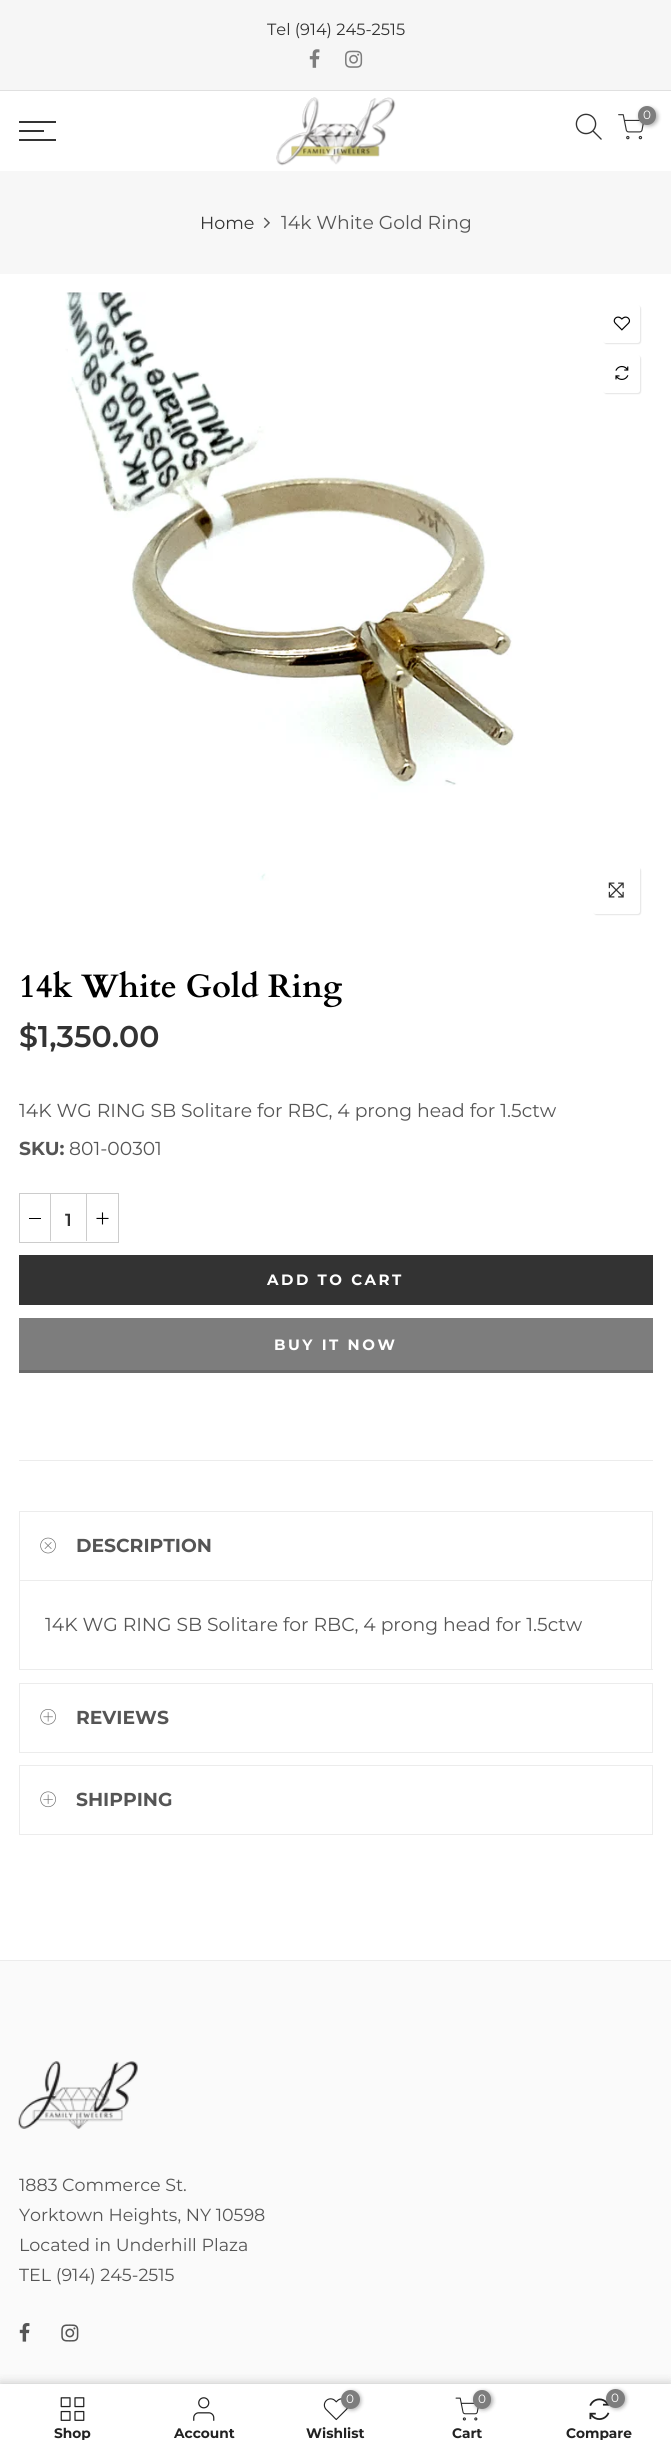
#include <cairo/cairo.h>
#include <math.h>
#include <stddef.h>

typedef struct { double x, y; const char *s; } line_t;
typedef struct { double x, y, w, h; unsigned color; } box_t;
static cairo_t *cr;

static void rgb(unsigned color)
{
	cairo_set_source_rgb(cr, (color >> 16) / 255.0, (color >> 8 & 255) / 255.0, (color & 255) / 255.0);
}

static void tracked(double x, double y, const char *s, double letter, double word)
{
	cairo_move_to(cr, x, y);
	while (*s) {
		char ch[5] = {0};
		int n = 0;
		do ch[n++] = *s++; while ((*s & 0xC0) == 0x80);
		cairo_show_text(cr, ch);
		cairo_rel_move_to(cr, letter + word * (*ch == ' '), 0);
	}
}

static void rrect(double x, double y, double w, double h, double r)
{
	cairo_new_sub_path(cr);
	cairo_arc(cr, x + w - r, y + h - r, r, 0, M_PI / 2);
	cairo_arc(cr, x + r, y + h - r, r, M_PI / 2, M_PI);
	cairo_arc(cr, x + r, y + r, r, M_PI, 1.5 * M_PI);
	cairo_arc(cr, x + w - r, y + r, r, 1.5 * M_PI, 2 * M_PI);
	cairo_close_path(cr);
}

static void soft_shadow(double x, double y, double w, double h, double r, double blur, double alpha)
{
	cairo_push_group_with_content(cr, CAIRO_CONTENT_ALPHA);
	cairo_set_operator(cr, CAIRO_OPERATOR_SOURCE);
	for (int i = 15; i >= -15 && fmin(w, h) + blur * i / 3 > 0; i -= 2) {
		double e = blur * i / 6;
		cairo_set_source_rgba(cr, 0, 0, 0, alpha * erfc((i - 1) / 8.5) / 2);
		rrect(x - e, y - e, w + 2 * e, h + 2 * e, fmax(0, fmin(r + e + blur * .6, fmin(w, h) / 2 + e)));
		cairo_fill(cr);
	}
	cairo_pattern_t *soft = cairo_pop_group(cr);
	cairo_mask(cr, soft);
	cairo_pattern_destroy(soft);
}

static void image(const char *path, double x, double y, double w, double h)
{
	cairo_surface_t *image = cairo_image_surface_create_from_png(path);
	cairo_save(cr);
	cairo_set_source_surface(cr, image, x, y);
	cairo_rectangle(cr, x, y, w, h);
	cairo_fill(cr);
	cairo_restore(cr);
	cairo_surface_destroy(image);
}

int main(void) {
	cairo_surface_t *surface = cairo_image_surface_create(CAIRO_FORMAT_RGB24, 671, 2452);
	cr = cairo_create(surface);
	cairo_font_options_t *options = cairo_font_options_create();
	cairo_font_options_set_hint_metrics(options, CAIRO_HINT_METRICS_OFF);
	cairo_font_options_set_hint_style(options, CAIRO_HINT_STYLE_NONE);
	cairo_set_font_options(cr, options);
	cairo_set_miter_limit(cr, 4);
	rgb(0xffffff);
	cairo_paint(cr);
	rgb(0xf6f6f6);
	cairo_rectangle(cr, 0, 0, 671, 90);
	cairo_fill(cr);
	rgb(0xe0e0e0);
	cairo_rectangle(cr, 0, 90, 671, 1);
	cairo_fill(cr);
	image("img/1.png", 309, 49, 11, 19);
	image("img/2.png", 345, 50, 18, 18);
	image("img/3.png", 276, 97, 120, 69);
	image("img/4.png", 575, 113, 27, 27);
	image("img/5.png", 618, 114, 26, 26);
	rgb(0x000000);
	soft_shadow(639, 108, 19, 18, 9, 2, 0.3);
	rgb(0x7d7d7d);
	rrect(638, 106, 18, 19, 9);
	cairo_fill(cr);
	{
		static const box_t items[] = {
			{19, 121, 37, 2, 0x333333},
			{19, 130, 25, 2, 0x333333},
			{19, 139, 37, 2, 0x333333},
			{0, 171, 671, 103, 0xf7f7f7},
		};
		for (size_t i = 0; i < sizeof items / sizeof *items; i++) {
			rgb(items[i].color);
			cairo_rectangle(cr, items[i].x, items[i].y, items[i].w, items[i].h);
			cairo_fill(cr);
		}
	}
	image("img/6.png", 263, 217, 7, 11);
	image("img/7.png", 65, 292, 450, 589);
	rgb(0x000000);
	soft_shadow(604, 306, 37, 38, 2.5, 0.5, 0.1);
	rgb(0xffffff);
	rrect(603, 305, 37, 38, 2.5);
	cairo_fill(cr);
	image("img/8.png", 613, 316, 18, 15);
	cairo_new_path(cr);
	cairo_move_to(cr, 613.5, 316);
	cairo_curve_to(cr, 616, 313.5, 620, 312.5, 623.5, 313.5);
	cairo_curve_to(cr, 636, 316, 634, 334.5, 621, 334.5);
	cairo_curve_to(cr, 618.5, 334.5, 615.5, 333, 613.5, 331.5);
	cairo_set_line_width(cr, 1.2);
	cairo_stroke(cr);
	rgb(0x000000);
	soft_shadow(604, 356, 37, 38, 2.5, 0.5, 0.1);
	rgb(0xffffff);
	rrect(603, 355, 37, 38, 2.5);
	cairo_fill(cr);
	image("img/9.png", 615, 365, 14, 15);
	rgb(0x000000);
	soft_shadow(594, 868, 47, 47, 2.5, 0.5, 0.1);
	rgb(0xffffff);
	rrect(593, 866, 47, 48, 2.5);
	cairo_fill(cr);
	image("img/10.png", 608, 882, 16, 16);
	cairo_rectangle(cr, 19.5, 1193.5, 99, 49);
	rgb(0xcccccc);
	cairo_set_line_width(cr, 1);
	cairo_stroke(cr);
	{
		static const box_t items[] = {
			{50, 1194, 1, 47, 0xcccccc},
			{29, 1218, 12, 1, 0x000000},
			{86, 1194, 1, 47, 0xcccccc},
		};
		for (size_t i = 0; i < sizeof items / sizeof *items; i++) {
			rgb(items[i].color);
			cairo_rectangle(cr, items[i].x, items[i].y, items[i].w, items[i].h);
			cairo_fill(cr);
		}
	}
	image("img/11.png", 96, 1212, 13, 13);
	{
		static const box_t items[] = {
			{19, 1255, 634, 50, 0x333333},
			{19, 1318, 634, 52, 0x7d7d7d},
			{19, 1370, 634, 3, 0x6a6a6a},
			{19, 1460, 634, 1, 0xececec},
		};
		for (size_t i = 0; i < sizeof items / sizeof *items; i++) {
			rgb(items[i].color);
			cairo_rectangle(cr, items[i].x, items[i].y, items[i].w, items[i].h);
			cairo_fill(cr);
		}
	}
	cairo_rectangle(cr, 19.5, 1511.5, 633, 69);
	cairo_stroke(cr);
	image("img/12.png", 40, 1537, 16, 17);
	{
		static const box_t items[] = {
			{651, 1581, 1, 89, 0xececec},
			{19, 1669, 634, 1, 0xececec},
			{19, 1581, 1, 89, 0xececec},
		};
		for (size_t i = 0; i < sizeof items / sizeof *items; i++) {
			rgb(items[i].color);
			cairo_rectangle(cr, items[i].x, items[i].y, items[i].w, items[i].h);
			cairo_fill(cr);
		}
	}
	cairo_rectangle(cr, 19.5, 1683.5, 633, 69);
	cairo_stroke(cr);
	image("img/13.png", 40, 1709, 16, 16);
	cairo_rectangle(cr, 19.5, 1765.5, 633, 69);
	cairo_stroke(cr);
	image("img/14.png", 40, 1791, 16, 17);
	rgb(0xfafafa);
	cairo_rectangle(cr, 0, 1961, 671, 423);
	cairo_fill(cr);
	rgb(0xececec);
	cairo_rectangle(cr, 0, 1960, 671, 1);
	cairo_fill(cr);
	image("img/15.png", 18, 2061, 120, 68);
	image("img/16.png", 19, 2323, 11, 19);
	image("img/17.png", 61, 2324, 18, 18);
	rgb(0x000000);
	soft_shadow(0, 2384, 671, 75, 0, 5.5, 0.12);
	soft_shadow(0, 2384, 671, 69, 0, 5.5, 0.12);
	rgb(0xffffff);
	cairo_rectangle(cr, 0, 2384, 671, 68);
	cairo_fill(cr);
	image("img/18.png", 60, 2397, 25, 24);
	image("img/19.png", 193, 2397, 22, 24);
	image("img/20.png", 323, 2398, 25, 23);
	rgb(0x000000);
	soft_shadow(343, 2391, 18, 19, 9, 2, 0.3);
	rgb(0x7d7d7d);
	cairo_arc(cr, 350.5, 2399.5, 9.5, 0, 2 * M_PI);
	cairo_fill(cr);
	image("img/21.png", 455, 2397, 24, 24);
	rgb(0x000000);
	soft_shadow(474, 2391, 19, 19, 9.5, 2, 0.3);
	rgb(0x7d7d7d);
	rrect(473, 2390, 18, 19, 9);
	cairo_fill(cr);
	image("img/22.png", 589, 2398, 21, 22);
	rgb(0x000000);
	soft_shadow(608, 2390, 18, 19, 9, 2, 0.3);
	rgb(0x7d7d7d);
	cairo_arc(cr, 615.5, 2398.5, 9.5, 0, 2 * M_PI);
	cairo_fill(cr);
	cairo_select_font_face(cr, "Montserrat", CAIRO_FONT_SLANT_NORMAL, CAIRO_FONT_WEIGHT_NORMAL);
	cairo_set_font_size(cr, 16.25);
	rgb(0x333333);
	cairo_move_to(cr, 267, 35);
	cairo_show_text(cr, "Tel (914) 245-2515");
	cairo_set_font_size(cr, 12);
	rgb(0xffffff);
	cairo_move_to(cr, 643, 119);
	cairo_show_text(cr, "0");
	cairo_set_font_size(cr, 17.5);
	rgb(0x333333);
	cairo_move_to(cr, 200, 229);
	cairo_show_text(cr, "Home");
	cairo_set_font_size(cr, 18.75);
	rgb(0x555555);
	cairo_move_to(cr, 281, 229);
	cairo_show_text(cr, "14k White Gold Ring");
	cairo_select_font_face(cr, "Cardo", CAIRO_FONT_SLANT_NORMAL, CAIRO_FONT_WEIGHT_BOLD);
	cairo_set_font_size(cr, 32.5);
	rgb(0x000000);
	cairo_move_to(cr, 19, 997);
	cairo_show_text(cr, "14k White Gold Ring");
	cairo_select_font_face(cr, "Montserrat SemiBold", CAIRO_FONT_SLANT_NORMAL, CAIRO_FONT_WEIGHT_NORMAL);
	cairo_set_font_size(cr, 30);
	rgb(0x333333);
	cairo_move_to(cr, 19, 1047);
	cairo_show_text(cr, "$1,350.00");
	cairo_select_font_face(cr, "Montserrat", CAIRO_FONT_SLANT_NORMAL, CAIRO_FONT_WEIGHT_NORMAL);
	cairo_set_font_size(cr, 18.75);
	rgb(0x555555);
	cairo_move_to(cr, 19, 1117);
	cairo_show_text(cr, "14K WG RING SB Solitare for RBC, 4 prong head for 1.5ctw");
	cairo_select_font_face(cr, "Montserrat", CAIRO_FONT_SLANT_NORMAL, CAIRO_FONT_WEIGHT_BOLD);
	cairo_move_to(cr, 19, 1155);
	cairo_show_text(cr, "SKU:");
	cairo_select_font_face(cr, "Montserrat", CAIRO_FONT_SLANT_NORMAL, CAIRO_FONT_WEIGHT_NORMAL);
	cairo_move_to(cr, 69, 1155);
	cairo_show_text(cr, "801-00301");
	cairo_select_font_face(cr, "Montserrat SemiBold", CAIRO_FONT_SLANT_NORMAL, CAIRO_FONT_WEIGHT_NORMAL);
	cairo_set_font_size(cr, 17.5);
	rgb(0x333333);
	cairo_move_to(cr, 65, 1226);
	cairo_show_text(cr, "1");
	cairo_select_font_face(cr, "Montserrat", CAIRO_FONT_SLANT_NORMAL, CAIRO_FONT_WEIGHT_BOLD);
	cairo_set_font_size(cr, 15);
	rgb(0xffffff);
	tracked(267, 1285, "ADD TO CART", 2.5, 0);
	tracked(274, 1350, "BUY IT NOW", 2.5, 0);
	cairo_set_font_size(cr, 18.75);
	rgb(0x555555);
	cairo_move_to(cr, 76, 1552);
	cairo_show_text(cr, "DESCRIPTION");
	cairo_select_font_face(cr, "Montserrat", CAIRO_FONT_SLANT_NORMAL, CAIRO_FONT_WEIGHT_NORMAL);
	cairo_move_to(cr, 45, 1631);
	cairo_show_text(cr, "14K WG RING SB Solitare for RBC, 4 prong head for 1.5ctw");
	cairo_select_font_face(cr, "Montserrat", CAIRO_FONT_SLANT_NORMAL, CAIRO_FONT_WEIGHT_BOLD);
	cairo_move_to(cr, 76, 1724);
	cairo_show_text(cr, "REVIEWS");
	cairo_move_to(cr, 76, 1806);
	cairo_show_text(cr, "SHIPPING");
	cairo_select_font_face(cr, "Montserrat", CAIRO_FONT_SLANT_NORMAL, CAIRO_FONT_WEIGHT_NORMAL);
	cairo_set_font_size(cr, 17.5);
	{
		static const line_t items[] = {
			{19, 2191, "1883 Commerce St."},
			{19, 2221, "Yorktown Heights, NY 10598"},
			{19, 2251, "Located in Underhill Plaza"},
			{19, 2281, "TEL (914) 245-2515"},
		};
		for (size_t i = 0; i < sizeof items / sizeof *items; i++) {
			cairo_move_to(cr, items[i].x, items[i].y);
			cairo_show_text(cr, items[i].s);
		}
	}
	cairo_save(cr);
	cairo_rectangle(cr, 19, 2426, 106, 14);
	cairo_clip(cr);
	cairo_select_font_face(cr, "Montserrat", CAIRO_FONT_SLANT_NORMAL, CAIRO_FONT_WEIGHT_BOLD);
	cairo_set_font_size(cr, 13.75);
	rgb(0x222222);
	cairo_move_to(cr, 54, 2438);
	cairo_show_text(cr, "Shop");
	cairo_restore(cr);
	cairo_select_font_face(cr, "Montserrat", CAIRO_FONT_SLANT_NORMAL, CAIRO_FONT_WEIGHT_BOLD);
	cairo_set_font_size(cr, 13.75);
	rgb(0x222222);
	cairo_move_to(cr, 174, 2438);
	cairo_show_text(cr, "Account");
	cairo_select_font_face(cr, "Montserrat", CAIRO_FONT_SLANT_NORMAL, CAIRO_FONT_WEIGHT_NORMAL);
	cairo_set_font_size(cr, 12);
	rgb(0xffffff);
	cairo_move_to(cr, 346, 2403);
	cairo_show_text(cr, "0");
	cairo_select_font_face(cr, "Montserrat", CAIRO_FONT_SLANT_NORMAL, CAIRO_FONT_WEIGHT_BOLD);
	cairo_set_font_size(cr, 13.75);
	rgb(0x222222);
	cairo_move_to(cr, 306, 2438);
	cairo_show_text(cr, "Wishlist");
	cairo_select_font_face(cr, "Montserrat", CAIRO_FONT_SLANT_NORMAL, CAIRO_FONT_WEIGHT_NORMAL);
	cairo_set_font_size(cr, 12);
	rgb(0xffffff);
	cairo_move_to(cr, 478, 2403);
	cairo_show_text(cr, "0");
	cairo_select_font_face(cr, "Montserrat", CAIRO_FONT_SLANT_NORMAL, CAIRO_FONT_WEIGHT_BOLD);
	cairo_set_font_size(cr, 13.75);
	rgb(0x222222);
	cairo_move_to(cr, 452, 2438);
	cairo_show_text(cr, "Cart");
	cairo_select_font_face(cr, "Montserrat", CAIRO_FONT_SLANT_NORMAL, CAIRO_FONT_WEIGHT_NORMAL);
	cairo_set_font_size(cr, 12);
	rgb(0xffffff);
	cairo_move_to(cr, 611, 2402);
	cairo_show_text(cr, "0");
	cairo_save(cr);
	cairo_rectangle(cr, 546, 2426, 107, 14);
	cairo_clip(cr);
	cairo_select_font_face(cr, "Montserrat", CAIRO_FONT_SLANT_NORMAL, CAIRO_FONT_WEIGHT_BOLD);
	cairo_set_font_size(cr, 13.75);
	rgb(0x222222);
	cairo_move_to(cr, 566, 2438);
	cairo_show_text(cr, "Compare");
	cairo_restore(cr);
	cairo_surface_write_to_png(surface, "page.png");
	cairo_font_options_destroy(options);
	cairo_destroy(cr);
	cairo_surface_destroy(surface);
	return 0;
}
